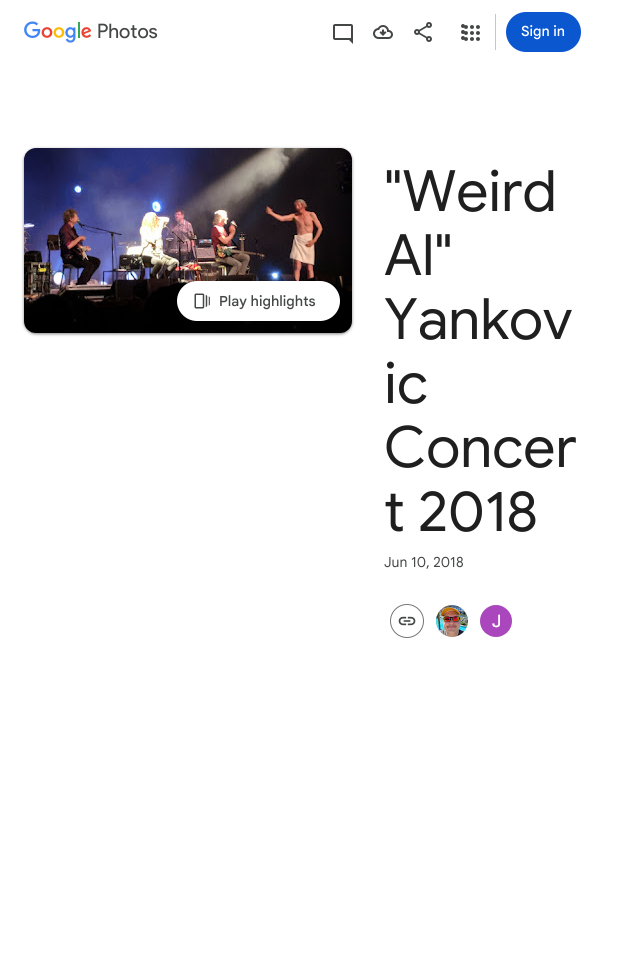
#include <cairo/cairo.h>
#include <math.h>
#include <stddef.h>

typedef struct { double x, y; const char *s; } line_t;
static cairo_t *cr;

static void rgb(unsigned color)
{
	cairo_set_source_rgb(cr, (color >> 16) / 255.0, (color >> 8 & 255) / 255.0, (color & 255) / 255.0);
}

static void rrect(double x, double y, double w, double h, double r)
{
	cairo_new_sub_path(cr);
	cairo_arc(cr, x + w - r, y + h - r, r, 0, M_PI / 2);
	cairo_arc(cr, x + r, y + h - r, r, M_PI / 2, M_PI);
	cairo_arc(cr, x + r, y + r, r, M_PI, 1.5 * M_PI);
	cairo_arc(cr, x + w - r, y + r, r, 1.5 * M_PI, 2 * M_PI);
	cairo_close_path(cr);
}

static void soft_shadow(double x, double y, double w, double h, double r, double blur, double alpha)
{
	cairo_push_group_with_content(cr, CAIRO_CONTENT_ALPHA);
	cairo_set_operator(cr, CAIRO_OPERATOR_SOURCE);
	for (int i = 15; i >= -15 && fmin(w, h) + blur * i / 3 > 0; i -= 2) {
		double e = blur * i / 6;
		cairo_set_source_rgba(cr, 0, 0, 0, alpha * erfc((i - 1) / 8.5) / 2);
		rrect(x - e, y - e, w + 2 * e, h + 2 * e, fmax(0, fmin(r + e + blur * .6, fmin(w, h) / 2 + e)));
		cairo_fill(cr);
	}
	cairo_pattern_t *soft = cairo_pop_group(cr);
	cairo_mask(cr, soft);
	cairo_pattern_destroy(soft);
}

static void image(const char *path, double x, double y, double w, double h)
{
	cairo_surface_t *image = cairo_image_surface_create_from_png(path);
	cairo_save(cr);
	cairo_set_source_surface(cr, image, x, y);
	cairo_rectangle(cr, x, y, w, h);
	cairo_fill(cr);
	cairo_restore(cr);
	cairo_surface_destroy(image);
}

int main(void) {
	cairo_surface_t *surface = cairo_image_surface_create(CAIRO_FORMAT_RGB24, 617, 958);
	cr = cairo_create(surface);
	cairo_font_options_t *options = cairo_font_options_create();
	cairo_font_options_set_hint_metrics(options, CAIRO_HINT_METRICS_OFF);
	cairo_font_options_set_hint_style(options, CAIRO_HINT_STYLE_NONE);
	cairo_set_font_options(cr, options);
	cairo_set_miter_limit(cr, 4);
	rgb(0xffffff);
	cairo_paint(cr);
	image("img/1.png", 24, 21, 68, 22);
	image("img/2.png", 333, 24, 20, 20);
	image("img/3.png", 373, 25, 20, 14);
	image("img/4.png", 414, 22, 18, 20);
	image("img/5.png", 461, 24, 4, 16);
	rgb(0xc4c7c5);
	cairo_rectangle(cr, 495, 14, 1, 36);
	cairo_fill(cr);
	rgb(0x000000);
	soft_shadow(23, 148, 330, 187, 13, 1.5, 0.15);
	soft_shadow(24, 149, 328, 185, 12, 1, 0.3);
	image("img/6.png", 24, 148, 328, 185);
	rgb(0xffffff);
	rrect(177, 281, 163, 40, 20);
	cairo_fill(cr);
	image("img/7.png", 194, 293, 16, 16);
	cairo_arc(cr, 407, 621, 16.5, 0, 2 * M_PI);
	rgb(0x747775);
	cairo_set_line_width(cr, 1);
	cairo_stroke(cr);
	image("img/8.png", 398, 616, 18, 10);
	image("img/9.png", 436, 605, 32, 32);
	image("img/10.png", 480, 605, 32, 32);
	image("img/11.png", 464, 25, 16, 16);
	rgb(0x0b57d0);
	rrect(506, 12, 75, 40, 20);
	cairo_fill(cr);
	cairo_select_font_face(cr, "Product Sans", CAIRO_FONT_SLANT_NORMAL, CAIRO_FONT_WEIGHT_NORMAL);
	cairo_set_font_size(cr, 20);
	rgb(0x444746);
	cairo_move_to(cr, 97, 38);
	cairo_show_text(cr, "Photos");
	cairo_select_font_face(cr, "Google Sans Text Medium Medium", CAIRO_FONT_SLANT_NORMAL, CAIRO_FONT_WEIGHT_NORMAL);
	cairo_set_font_size(cr, 14);
	cairo_move_to(cr, 219, 306);
	cairo_show_text(cr, "Play highlights");
	cairo_select_font_face(cr, "Google Sans", CAIRO_FONT_SLANT_NORMAL, CAIRO_FONT_WEIGHT_NORMAL);
	cairo_set_font_size(cr, 57);
	rgb(0x1f1f1f);
	{
		static const line_t items[] = {
			{384, 211, "\"Weird"},
			{384, 275, "Al\""},
			{384, 339, "Yankov"},
			{384, 403, "ic"},
			{384, 467, "Concer"},
			{384, 531, "t 2018"},
		};
		for (size_t i = 0; i < sizeof items / sizeof *items; i++) {
			cairo_move_to(cr, items[i].x, items[i].y);
			cairo_show_text(cr, items[i].s);
		}
	}
	cairo_select_font_face(cr, "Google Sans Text", CAIRO_FONT_SLANT_NORMAL, CAIRO_FONT_WEIGHT_NORMAL);
	cairo_set_font_size(cr, 14);
	rgb(0x444746);
	cairo_move_to(cr, 384, 567);
	cairo_show_text(cr, "Jun 10, 2018");
	cairo_select_font_face(cr, "Google Sans Text Medium Medium", CAIRO_FONT_SLANT_NORMAL, CAIRO_FONT_WEIGHT_NORMAL);
	rgb(0xffffff);
	cairo_move_to(cr, 521, 36);
	cairo_show_text(cr, "Sign in");
	cairo_surface_write_to_png(surface, "page.png");
	cairo_font_options_destroy(options);
	cairo_destroy(cr);
	cairo_surface_destroy(surface);
	return 0;
}
